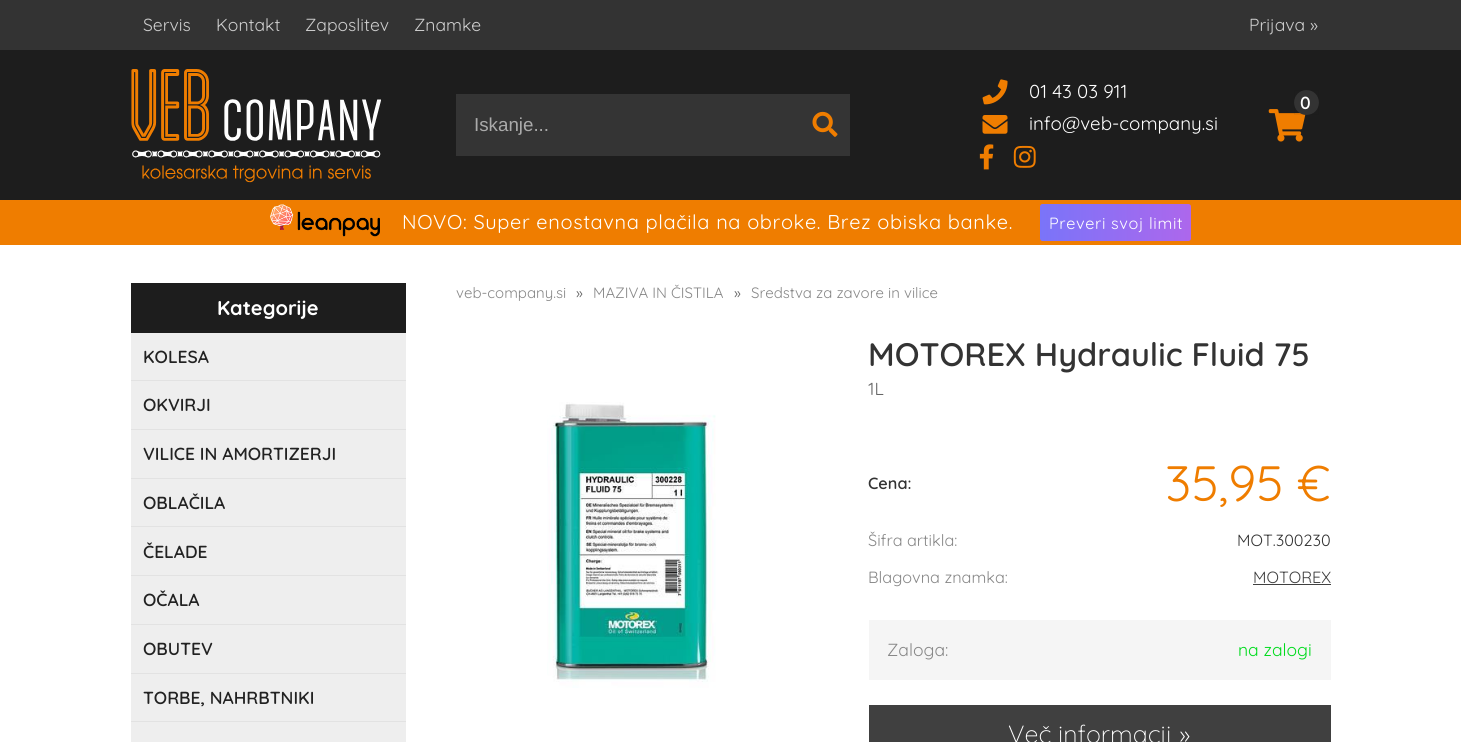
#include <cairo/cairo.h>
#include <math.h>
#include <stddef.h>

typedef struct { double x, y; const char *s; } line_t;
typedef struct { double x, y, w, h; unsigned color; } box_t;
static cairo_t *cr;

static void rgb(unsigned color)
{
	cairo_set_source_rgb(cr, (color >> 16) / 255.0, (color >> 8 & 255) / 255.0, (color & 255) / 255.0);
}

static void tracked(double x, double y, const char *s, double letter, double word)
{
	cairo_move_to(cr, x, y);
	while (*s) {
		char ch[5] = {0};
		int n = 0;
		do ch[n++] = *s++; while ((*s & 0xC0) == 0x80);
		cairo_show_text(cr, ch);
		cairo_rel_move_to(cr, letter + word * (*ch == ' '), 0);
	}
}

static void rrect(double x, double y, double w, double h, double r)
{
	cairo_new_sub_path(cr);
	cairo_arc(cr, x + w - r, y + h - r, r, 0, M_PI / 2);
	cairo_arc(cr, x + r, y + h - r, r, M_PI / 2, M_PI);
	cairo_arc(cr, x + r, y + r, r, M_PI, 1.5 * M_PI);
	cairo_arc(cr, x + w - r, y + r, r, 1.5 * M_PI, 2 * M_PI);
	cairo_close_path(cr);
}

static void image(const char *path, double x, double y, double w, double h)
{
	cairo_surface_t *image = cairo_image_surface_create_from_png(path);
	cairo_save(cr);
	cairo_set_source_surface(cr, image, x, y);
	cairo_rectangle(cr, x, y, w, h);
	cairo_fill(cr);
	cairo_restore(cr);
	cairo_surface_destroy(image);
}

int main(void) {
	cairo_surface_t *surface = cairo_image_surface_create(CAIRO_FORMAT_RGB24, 1461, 742);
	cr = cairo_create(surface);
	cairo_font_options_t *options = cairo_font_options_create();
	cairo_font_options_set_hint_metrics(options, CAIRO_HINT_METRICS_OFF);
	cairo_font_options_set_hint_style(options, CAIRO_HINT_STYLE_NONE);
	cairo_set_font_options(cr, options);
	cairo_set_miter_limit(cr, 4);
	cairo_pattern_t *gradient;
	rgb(0xffffff);
	cairo_paint(cr);
	rgb(0x1d1d1d);
	cairo_rectangle(cr, 0, 50, 1461, 150);
	cairo_fill(cr);
	rgb(0x333333);
	cairo_rectangle(cr, 0, 0, 1461, 50);
	cairo_fill(cr);
	image("img/1.png", 131, 69, 250, 114);
	image("img/2.png", 982, 79, 26, 26);
	image("img/3.png", 982, 115, 26, 19);
	image("img/4.png", 979, 144, 15, 26);
	image("img/5.png", 1013, 145, 23, 23);
	image("img/6.png", 1268, 109, 38, 33);
	cairo_arc(cr, 1306.5, 102.5, 12.5, 0, 2 * M_PI);
	cairo_fill(cr);
	cairo_rectangle(cr, 1294.5, 90.5, 24, 24);
	cairo_set_source_rgba(cr, 0, 0, 0, 0.05);
	cairo_set_line_width(cr, 1);
	cairo_stroke(cr);
	rgb(0x343434);
	cairo_rectangle(cr, 456, 94, 394, 62);
	cairo_fill(cr);
	image("img/7.png", 812, 111, 26, 26);
	rgb(0xef7d00);
	cairo_rectangle(cr, 0, 200, 1461, 45);
	cairo_fill(cr);
	image("img/8.png", 270, 204, 110, 33);
	gradient = cairo_pattern_create_linear(1040, 223, 1191, 223);
	cairo_pattern_add_color_stop_rgba(gradient, 0, 0.478, 0.455, 0.976, 1);
	cairo_pattern_add_color_stop_rgba(gradient, 1, 0.678, 0.404, 0.925, 1);
	cairo_set_source(cr, gradient);
	cairo_pattern_destroy(gradient);
	rrect(1040, 204, 151, 37, 2.5);
	cairo_fill(cr);
	{
		static const box_t items[] = {
			{131, 283, 275, 50, 0x1d1d1d},
			{131, 333, 275, 409, 0xeeeeee},
			{131, 380, 275, 1, 0xe2e2e2},
			{131, 429, 275, 1, 0xe2e2e2},
			{131, 478, 275, 1, 0xe2e2e2},
			{131, 526, 275, 1, 0xe2e2e2},
			{131, 575, 275, 1, 0xe2e2e2},
			{131, 624, 275, 1, 0xe2e2e2},
			{131, 673, 275, 1, 0xe2e2e2},
			{131, 721, 275, 1, 0xe2e2e2},
		};
		for (size_t i = 0; i < sizeof items / sizeof *items; i++) {
			rgb(items[i].color);
			cairo_rectangle(cr, items[i].x, items[i].y, items[i].w, items[i].h);
			cairo_fill(cr);
		}
	}
	image("img/9.png", 547, 402, 169, 286);
	{
		static const box_t items[] = {
			{1253, 584, 78, 1, 0x404040},
			{869, 620, 462, 60, 0xf5f5f5},
			{869, 705, 462, 37, 0x404040},
		};
		for (size_t i = 0; i < sizeof items / sizeof *items; i++) {
			rgb(items[i].color);
			cairo_rectangle(cr, items[i].x, items[i].y, items[i].w, items[i].h);
			cairo_fill(cr);
		}
	}
	cairo_select_font_face(cr, "Quicksand Light", CAIRO_FONT_SLANT_NORMAL, CAIRO_FONT_WEIGHT_NORMAL);
	cairo_set_font_size(cr, 17.5);
	rgb(0xcccccc);
	{
		static const line_t items[] = {
			{143, 31, "Servis"},
			{216, 31, "Kontakt"},
			{305, 31, "Zaposlitev"},
			{414, 31, "Znamke"},
			{1249, 31, "Prijava »"},
		};
		for (size_t i = 0; i < sizeof items / sizeof *items; i++) {
			cairo_move_to(cr, items[i].x, items[i].y);
			cairo_show_text(cr, items[i].s);
		}
	}
	cairo_set_font_size(cr, 18.75);
	rgb(0xffffff);
	cairo_move_to(cr, 1029, 98);
	cairo_show_text(cr, "01 43 03 911");
	cairo_move_to(cr, 1029, 130);
	cairo_show_text(cr, "info@veb-company.si");
	cairo_select_font_face(cr, "Quicksand SemiBold", CAIRO_FONT_SLANT_NORMAL, CAIRO_FONT_WEIGHT_NORMAL);
	cairo_set_font_size(cr, 17.5);
	cairo_move_to(cr, 1300, 109);
	cairo_show_text(cr, "0");
	cairo_select_font_face(cr, "Liberation Sans", CAIRO_FONT_SLANT_NORMAL, CAIRO_FONT_WEIGHT_NORMAL);
	cairo_set_font_size(cr, 18.75);
	rgb(0xaaaaaa);
	cairo_move_to(cr, 474, 131);
	cairo_show_text(cr, "Iskanje...");
	cairo_select_font_face(cr, "Quicksand Light", CAIRO_FONT_SLANT_NORMAL, CAIRO_FONT_WEIGHT_NORMAL);
	cairo_set_font_size(cr, 20);
	rgb(0xffffff);
	tracked(402, 229, "NOVO: Super enostavna plačila na obroke. Brez obiska banke.", 0.62, 0);
	cairo_set_font_size(cr, 16.25);
	tracked(1049, 229, "Preveri svoj limit", 0.62, 0);
	cairo_select_font_face(cr, "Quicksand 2 Light", CAIRO_FONT_SLANT_NORMAL, CAIRO_FONT_WEIGHT_NORMAL);
	cairo_set_font_size(cr, 20);
	cairo_move_to(cr, 217, 315);
	cairo_show_text(cr, "Kategorije");
	cairo_select_font_face(cr, "Quicksand SemiBold", CAIRO_FONT_SLANT_NORMAL, CAIRO_FONT_WEIGHT_NORMAL);
	cairo_set_font_size(cr, 17.5);
	rgb(0x222222);
	{
		static const line_t items[] = {
			{143, 363, "KOLESA"},
			{143, 411, "OKVIRJI"},
			{143, 460, "VILICE IN AMORTIZERJI"},
			{143, 509, "OBLAČILA"},
			{143, 558, "ČELADE"},
			{143, 606, "OČALA"},
			{143, 655, "OBUTEV"},
			{143, 704, "TORBE, NAHRBTNIKI"},
		};
		for (size_t i = 0; i < sizeof items / sizeof *items; i++) {
			cairo_move_to(cr, items[i].x, items[i].y);
			cairo_show_text(cr, items[i].s);
		}
	}
	cairo_select_font_face(cr, "Quicksand Light", CAIRO_FONT_SLANT_NORMAL, CAIRO_FONT_WEIGHT_NORMAL);
	cairo_set_font_size(cr, 15);
	rgb(0x888888);
	cairo_move_to(cr, 456, 298);
	cairo_show_text(cr, "veb-company.si");
	rgb(0x606060);
	cairo_move_to(cr, 576, 298);
	cairo_show_text(cr, "»");
	rgb(0x888888);
	cairo_move_to(cr, 593, 298);
	cairo_show_text(cr, "MAZIVA IN ČISTILA");
	rgb(0x606060);
	cairo_move_to(cr, 734, 298);
	cairo_show_text(cr, "»");
	rgb(0x888888);
	cairo_move_to(cr, 751, 298);
	cairo_show_text(cr, "Sredstva za zavore in vilice");
	cairo_select_font_face(cr, "Quicksand SemiBold", CAIRO_FONT_SLANT_NORMAL, CAIRO_FONT_WEIGHT_NORMAL);
	cairo_set_font_size(cr, 32.5);
	rgb(0x333333);
	cairo_move_to(cr, 868, 366);
	cairo_show_text(cr, "MOTOREX Hydraulic Fluid 75");
	cairo_select_font_face(cr, "Quicksand Light", CAIRO_FONT_SLANT_NORMAL, CAIRO_FONT_WEIGHT_NORMAL);
	cairo_set_font_size(cr, 17.5);
	rgb(0x666666);
	cairo_move_to(cr, 868, 395);
	cairo_show_text(cr, "1L");
	cairo_select_font_face(cr, "Quicksand SemiBold", CAIRO_FONT_SLANT_NORMAL, CAIRO_FONT_WEIGHT_NORMAL);
	cairo_set_font_size(cr, 16.25);
	rgb(0x333333);
	cairo_move_to(cr, 868, 489);
	cairo_show_text(cr, "Cena:");
	cairo_select_font_face(cr, "Quicksand Light", CAIRO_FONT_SLANT_NORMAL, CAIRO_FONT_WEIGHT_NORMAL);
	cairo_set_font_size(cr, 50);
	rgb(0xef7d00);
	cairo_move_to(cr, 1165, 501);
	cairo_show_text(cr, "35,95 €");
	cairo_set_font_size(cr, 16.25);
	rgb(0x888888);
	cairo_move_to(cr, 868, 546);
	cairo_show_text(cr, "Šifra artikla:");
	rgb(0x333333);
	cairo_move_to(cr, 1237, 546);
	cairo_show_text(cr, "MOT.300230");
	rgb(0x888888);
	cairo_move_to(cr, 868, 583);
	cairo_show_text(cr, "Blagovna znamka:");
	rgb(0x404040);
	cairo_move_to(cr, 1253, 583);
	cairo_show_text(cr, "MOTOREX");
	cairo_set_font_size(cr, 17.5);
	rgb(0x888888);
	cairo_move_to(cr, 887, 656);
	cairo_show_text(cr, "Zaloga:");
	rgb(0x00db1d);
	cairo_move_to(cr, 1238, 656);
	cairo_show_text(cr, "na zalogi");
	cairo_select_font_face(cr, "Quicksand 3 Light", CAIRO_FONT_SLANT_NORMAL, CAIRO_FONT_WEIGHT_NORMAL);
	cairo_set_font_size(cr, 25);
	rgb(0xffffff);
	cairo_move_to(cr, 1008, 743);
	cairo_show_text(cr, "Več informacij »");
	cairo_surface_write_to_png(surface, "page.png");
	cairo_font_options_destroy(options);
	cairo_destroy(cr);
	cairo_surface_destroy(surface);
	return 0;
}
